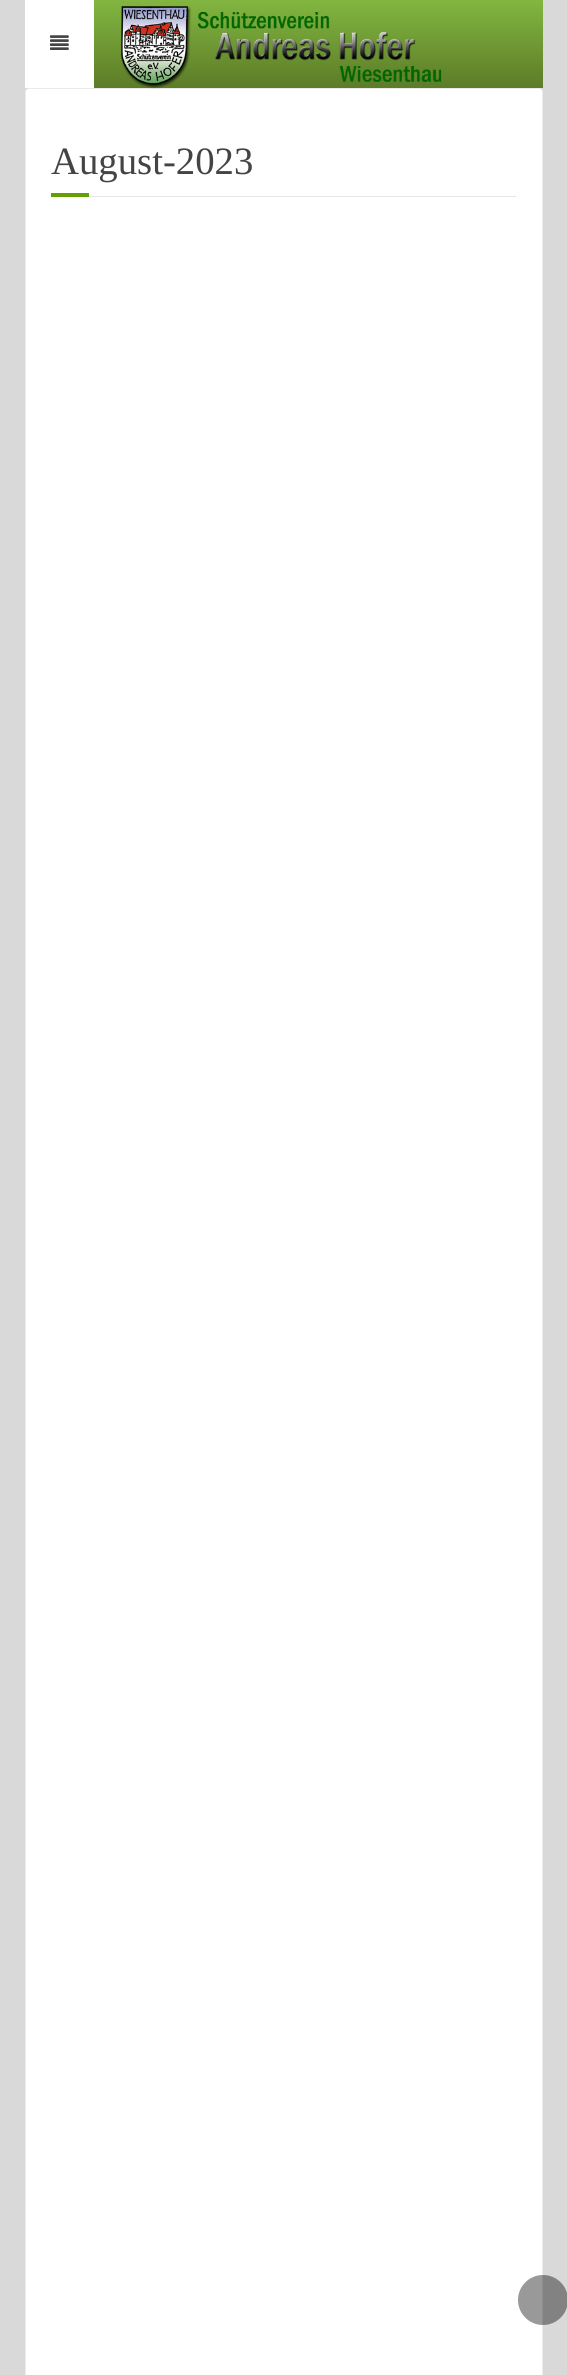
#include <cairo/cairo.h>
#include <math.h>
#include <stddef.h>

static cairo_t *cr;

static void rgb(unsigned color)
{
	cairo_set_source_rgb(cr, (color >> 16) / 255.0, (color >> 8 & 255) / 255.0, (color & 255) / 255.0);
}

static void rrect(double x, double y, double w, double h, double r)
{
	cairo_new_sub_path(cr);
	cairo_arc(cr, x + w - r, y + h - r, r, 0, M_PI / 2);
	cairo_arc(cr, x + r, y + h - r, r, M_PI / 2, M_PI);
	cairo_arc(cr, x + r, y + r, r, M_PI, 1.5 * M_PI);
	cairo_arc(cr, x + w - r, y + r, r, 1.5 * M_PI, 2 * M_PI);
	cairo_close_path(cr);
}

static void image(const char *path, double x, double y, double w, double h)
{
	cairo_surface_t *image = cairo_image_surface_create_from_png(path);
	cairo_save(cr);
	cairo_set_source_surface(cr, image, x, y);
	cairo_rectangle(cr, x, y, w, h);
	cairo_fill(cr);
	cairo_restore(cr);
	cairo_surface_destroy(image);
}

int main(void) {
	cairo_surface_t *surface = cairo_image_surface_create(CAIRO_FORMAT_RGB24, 567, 2375);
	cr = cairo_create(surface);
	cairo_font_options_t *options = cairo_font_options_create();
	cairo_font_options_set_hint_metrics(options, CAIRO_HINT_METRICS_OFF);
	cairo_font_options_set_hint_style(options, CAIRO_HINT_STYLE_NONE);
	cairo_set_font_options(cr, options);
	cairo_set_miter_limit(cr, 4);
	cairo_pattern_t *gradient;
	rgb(0xd9d9d9);
	cairo_paint(cr);
	gradient = cairo_pattern_create_linear(284, 0, 284, 88);
	cairo_pattern_add_color_stop_rgba(gradient, 0, 0.51, 0.714, 0.251, 1);
	cairo_pattern_add_color_stop_rgba(gradient, 1, 0.361, 0.486, 0.157, 1);
	cairo_set_source(cr, gradient);
	cairo_pattern_destroy(gradient);
	cairo_rectangle(cr, 94, 0, 449, 88);
	cairo_fill(cr);
	rgb(0xffffff);
	cairo_rectangle(cr, 25, 0, 69, 88);
	cairo_fill(cr);
	image("img/1.png", 50, 35, 19, 15);
	rrect(25, 88, 518, 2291, 4);
	cairo_fill(cr);
	rrect(25.5, 88.5, 517, 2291, 3.5);
	cairo_set_source_rgba(cr, 0, 0, 0, 0.08);
	cairo_set_line_width(cr, 1);
	cairo_stroke(cr);
	image("img/2.png", 121, 6, 321, 83);
	rgb(0xe6e6e6);
	cairo_rectangle(cr, 89, 196, 427, 1);
	cairo_fill(cr);
	rgb(0x64a004);
	cairo_rectangle(cr, 51, 193, 38, 4);
	cairo_fill(cr);
	cairo_set_source_rgba(cr, 0, 0, 0, 0.4);
	cairo_arc(cr, 543, 2300, 25, 0, 2 * M_PI);
	cairo_fill(cr);
	cairo_select_font_face(cr, "Liberation Serif", CAIRO_FONT_SLANT_NORMAL, CAIRO_FONT_WEIGHT_NORMAL);
	cairo_set_font_size(cr, 38.75);
	rgb(0x444444);
	cairo_move_to(cr, 51, 174);
	cairo_show_text(cr, "August-2023");
	cairo_surface_write_to_png(surface, "page.png");
	cairo_font_options_destroy(options);
	cairo_destroy(cr);
	cairo_surface_destroy(surface);
	return 0;
}
